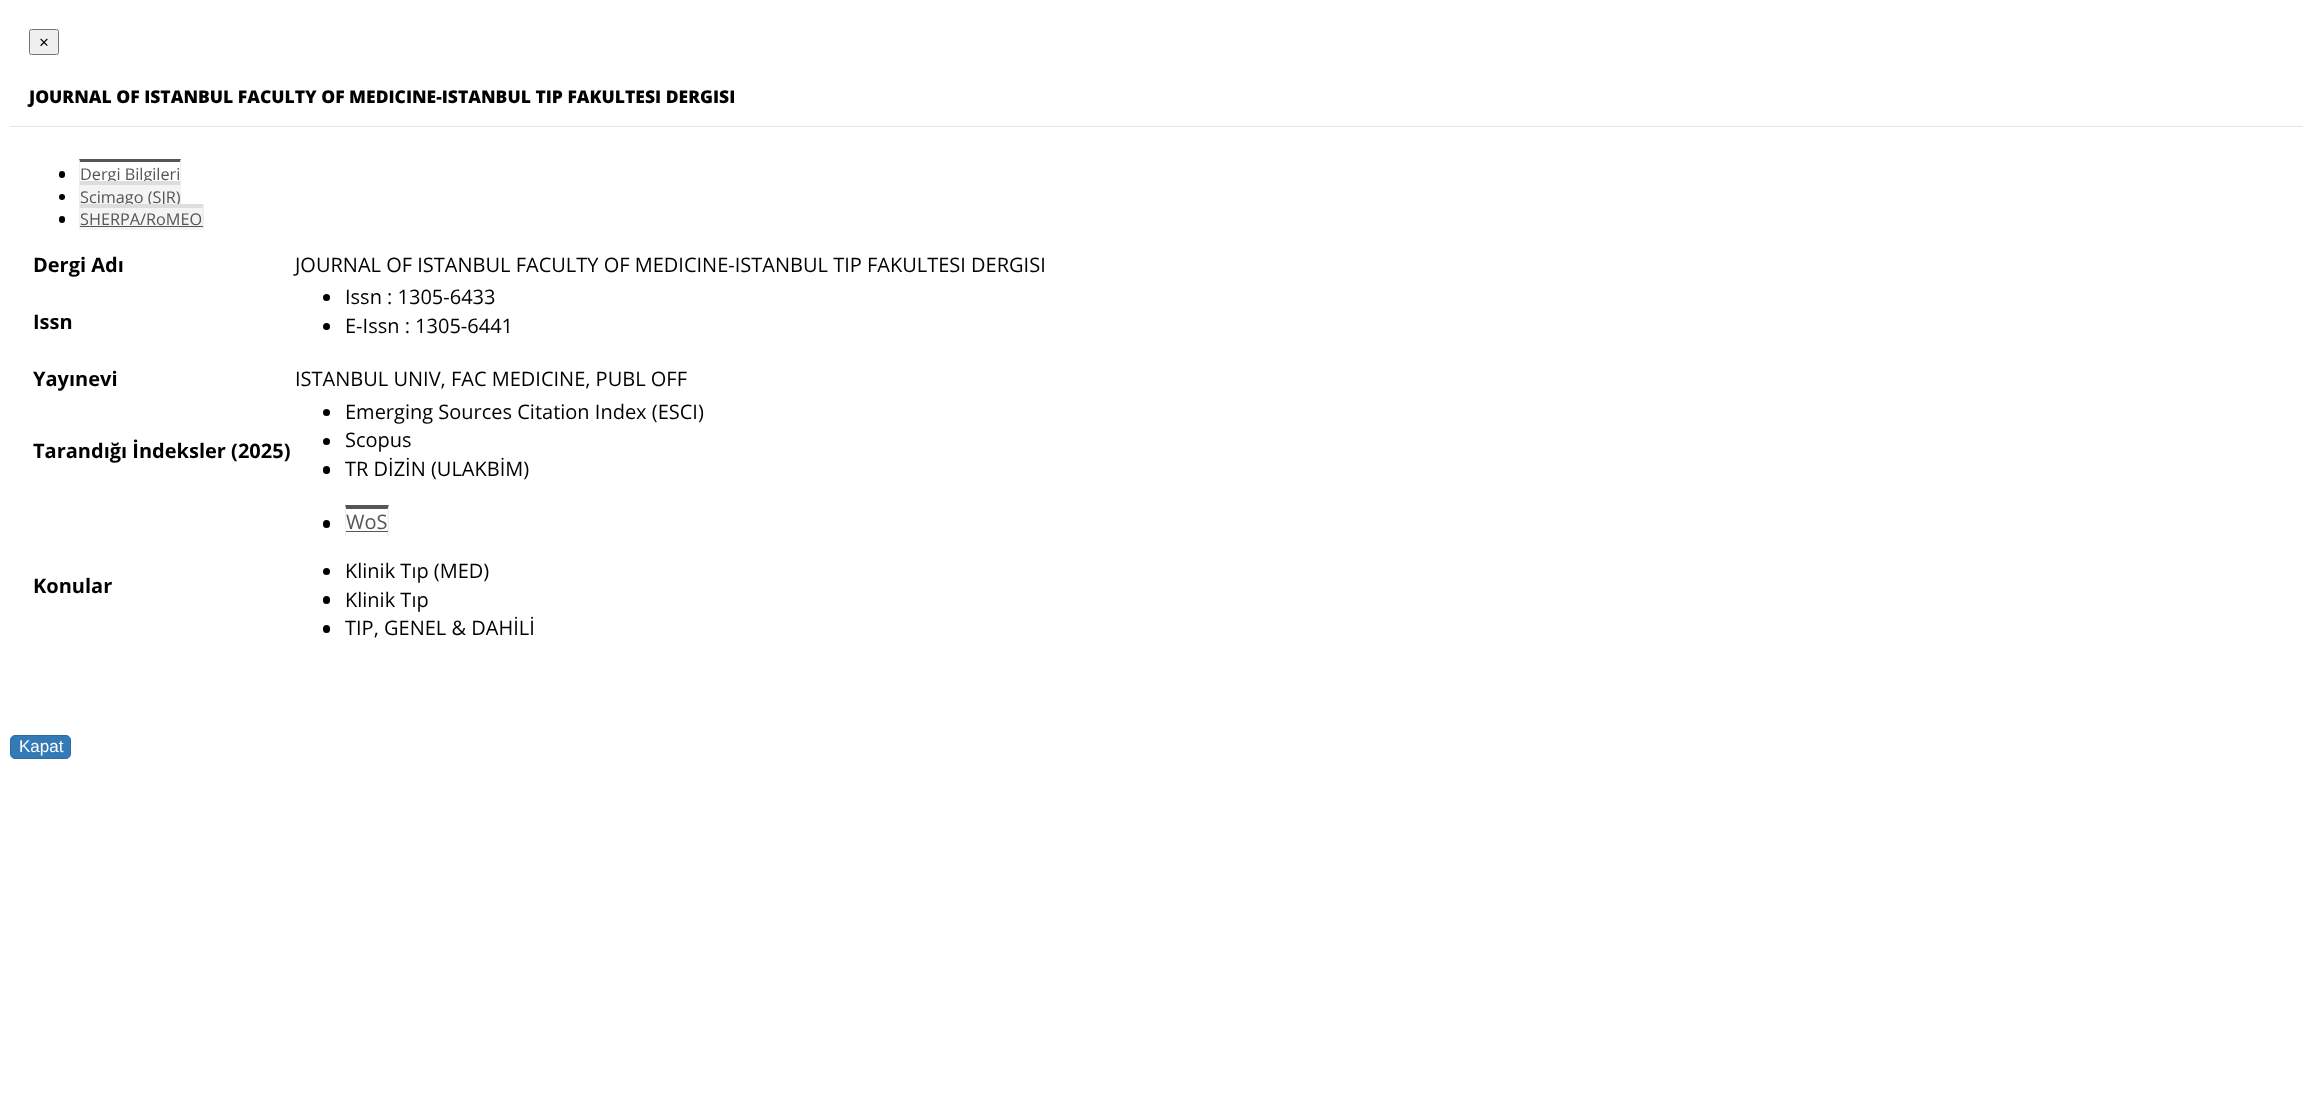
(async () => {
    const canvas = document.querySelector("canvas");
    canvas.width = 2312;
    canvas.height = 1100;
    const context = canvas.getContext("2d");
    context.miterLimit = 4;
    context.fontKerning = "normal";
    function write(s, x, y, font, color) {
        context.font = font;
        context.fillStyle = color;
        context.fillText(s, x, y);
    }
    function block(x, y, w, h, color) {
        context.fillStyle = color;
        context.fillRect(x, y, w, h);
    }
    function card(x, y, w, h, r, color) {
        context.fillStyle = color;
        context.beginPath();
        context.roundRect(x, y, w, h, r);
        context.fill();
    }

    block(0, 0, 2312, 1100, "rgb(255, 255, 255)");
    block(10, 126, 2293, 1, "rgb(229, 229, 229)");
    context.fillStyle = "rgb(239, 239, 239)";
    context.beginPath();
    context.roundRect(29.5, 29.5, 29, 25, 2);
    context.fill();
    context.strokeStyle = "rgb(118, 118, 118)";
    context.stroke();
    write("×", 39, 48, "17px Liberation Sans", "rgb(0, 0, 0)");
    write("JOURNAL OF ISTANBUL FACULTY OF MEDICINE-ISTANBUL TIP FAKULTESI DERGISI", 29, 103, "800 17.5px Open Sans", "rgb(0, 0, 0)");
    card(59, 171, 6, 7, 3, "rgb(0, 0, 0)");
    write("Dergi Bilgileri", 80, 180, "16.25px Open Sans", "rgb(85, 85, 85)");
    context.beginPath();
    context.moveTo(79, 159);
    context.lineTo(181, 159);
    context.lineTo(180, 162);
    context.lineTo(80, 162);
    context.closePath();
    context.fill();
    context.fillStyle = "rgb(238, 238, 238)";
    context.beginPath();
    context.moveTo(181, 159);
    context.lineTo(181, 185);
    context.lineTo(180, 185);
    context.lineTo(180, 162.5);
    context.closePath();
    context.fill();
    context.beginPath();
    context.moveTo(79, 185);
    context.lineTo(79, 159);
    context.lineTo(80, 162.5);
    context.lineTo(80, 185);
    context.closePath();
    context.fill();
    context.fillStyle = "rgb(0, 0, 0)";
    context.beginPath();
    context.arc(62, 197, 3, 0, Math.PI * 2);
    context.fill();
    block(79, 181, 102, 23, "rgb(244, 244, 244)");
    write("Scimago (SJR)", 80, 203, "16.25px Open Sans", "rgb(85, 85, 85)");
    context.fillStyle = "rgb(221, 221, 221)";
    context.beginPath();
    context.moveTo(79, 181);
    context.lineTo(181, 181);
    context.lineTo(180, 185);
    context.lineTo(80, 185);
    context.closePath();
    context.fill();
    context.fillStyle = "rgb(238, 238, 238)";
    context.beginPath();
    context.moveTo(181, 181);
    context.lineTo(181, 207.5);
    context.lineTo(180, 207.5);
    context.lineTo(180, 185);
    context.closePath();
    context.fill();
    context.beginPath();
    context.moveTo(79, 207.5);
    context.lineTo(79, 181);
    context.lineTo(80, 185);
    context.lineTo(80, 207.5);
    context.closePath();
    context.fill();
    card(59, 216, 6, 7, 3, "rgb(0, 0, 0)");
    block(79, 204, 125, 26, "rgb(244, 244, 244)");
    write("SHERPA/RoMEO", 80, 225, "16.25px Open Sans", "rgb(85, 85, 85)");
    context.fillStyle = "rgb(221, 221, 221)";
    context.beginPath();
    context.moveTo(79, 204);
    context.lineTo(204, 204);
    context.lineTo(202, 208);
    context.lineTo(80, 208);
    context.closePath();
    context.fill();
    context.fillStyle = "rgb(238, 238, 238)";
    context.beginPath();
    context.moveTo(204, 204);
    context.lineTo(204, 230);
    context.lineTo(202.5, 230);
    context.lineTo(202.5, 207.5);
    context.closePath();
    context.fill();
    context.beginPath();
    context.moveTo(79, 230);
    context.lineTo(79, 204);
    context.lineTo(80, 207.5);
    context.lineTo(80, 230);
    context.closePath();
    context.fill();
    block(80, 226, 123, 1, "rgb(85, 85, 85)");
    write("Dergi Adı", 33, 272, "bold 20px Open Sans", "rgb(0, 0, 0)");
    write("JOURNAL OF ISTANBUL FACULTY OF MEDICINE-ISTANBUL TIP FAKULTESI DERGISI", 295, 272, "20px Open Sans", "rgb(0, 0, 0)");
    write("Issn", 33, 329, "bold 20px Open Sans", "rgb(0, 0, 0)");
    context.beginPath();
    context.arc(326.5, 297.5, 3.5, 0, Math.PI * 2);
    context.fill();
    write("Issn : 1305-6433", 345, 304, "20px Open Sans", "rgb(0, 0, 0)");
    context.beginPath();
    context.arc(326.5, 326.5, 3.5, 0, Math.PI * 2);
    context.fill();
    write("E-Issn : 1305-6441", 345, 333, "20px Open Sans", "rgb(0, 0, 0)");
    write("Yayınevi", 33, 386, "bold 20px Open Sans", "rgb(0, 0, 0)");
    write("ISTANBUL UNIV, FAC MEDICINE, PUBL OFF", 295, 386, "20px Open Sans", "rgb(0, 0, 0)");
    write("Tarandığı İndeksler (2025)", 33, 458, "bold 20px Open Sans", "rgb(0, 0, 0)");
    context.beginPath();
    context.arc(326.5, 412.5, 3.5, 0, Math.PI * 2);
    context.fill();
    write("Emerging Sources Citation Index (ESCI)", 345, 419, "20px Open Sans", "rgb(0, 0, 0)");
    context.beginPath();
    context.arc(326.5, 441.5, 3.5, 0, Math.PI * 2);
    context.fill();
    write("Scopus", 345, 447, "20px Open Sans", "rgb(0, 0, 0)");
    card(323, 466, 7, 8, 3.5, "rgb(0, 0, 0)");
    write("TR DİZİN (ULAKBİM)", 345, 476, "20px Open Sans", "rgb(0, 0, 0)");
    write("Konular", 33, 593, "bold 20px Open Sans", "rgb(0, 0, 0)");
    card(323, 520, 7, 8, 3.5, "rgb(0, 0, 0)");
    context.fillStyle = "rgb(85, 85, 85)";
    context.beginPath();
    context.moveTo(345, 505);
    context.lineTo(389, 505);
    context.lineTo(388, 509);
    context.lineTo(346, 509);
    context.closePath();
    context.fill();
    context.fillStyle = "rgb(238, 238, 238)";
    context.beginPath();
    context.moveTo(389, 505);
    context.lineTo(389, 536);
    context.lineTo(387.5, 536);
    context.lineTo(387.5, 509);
    context.closePath();
    context.moveTo(345, 536);
    context.lineTo(345, 505);
    context.lineTo(346, 509);
    context.lineTo(346, 536);
    context.closePath();
    context.fill();
    write("WoS", 346, 529, "20px Open Sans", "rgb(85, 85, 85)");
    block(346, 531, 42, 1, "rgb(85, 85, 85)");
    context.fillStyle = "rgb(0, 0, 0)";
    context.beginPath();
    context.arc(326.5, 571.5, 3.5, 0, Math.PI * 2);
    context.fill();
    write("Klinik Tıp (MED)", 345, 578, "20px Open Sans", "rgb(0, 0, 0)");
    card(323, 596, 7, 8, 3.5, "rgb(0, 0, 0)");
    write("Klinik Tıp", 345, 607, "20px Open Sans", "rgb(0, 0, 0)");
    card(323, 625, 7, 8, 3.5, "rgb(0, 0, 0)");
    write("TIP, GENEL & DAHİLİ", 345, 635, "20px Open Sans", "rgb(0, 0, 0)");
    context.fillStyle = "rgb(51, 122, 183)";
    context.beginPath();
    context.roundRect(10.5, 735.5, 60, 23, 4.5);
    context.fill();
    context.strokeStyle = "rgb(46, 109, 164)";
    context.stroke();
    write("Kapat", 19, 752, "17px Liberation Sans", "rgb(255, 255, 255)");
})();
